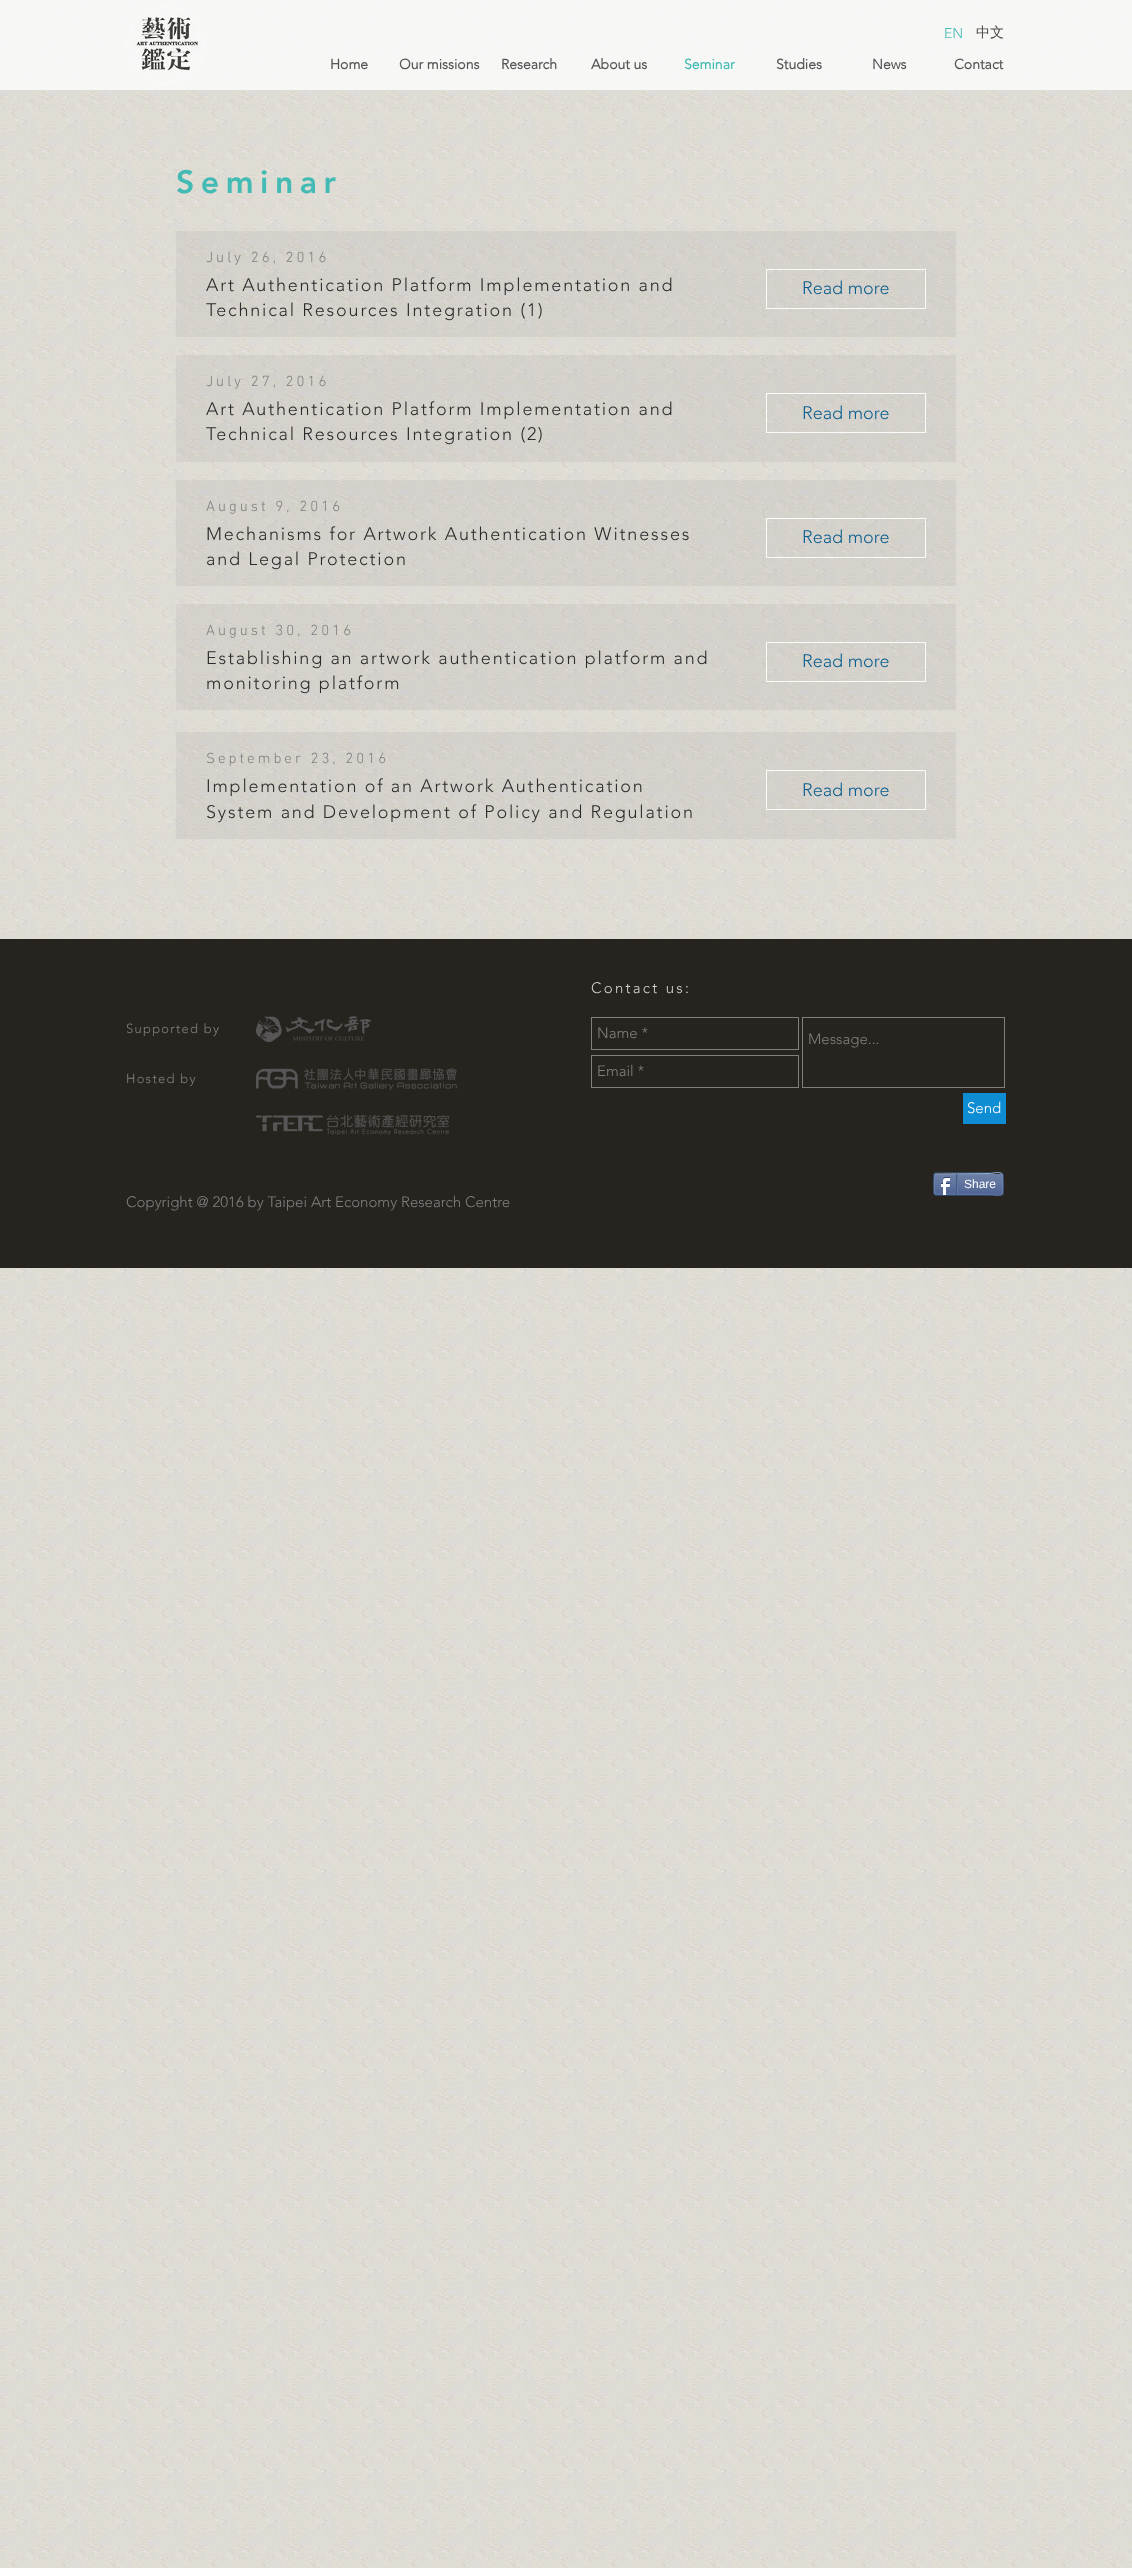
(async () => {
    const canvas = document.querySelector("canvas");
    canvas.width = 1132;
    canvas.height = 2568;
    const context = canvas.getContext("2d");
    context.miterLimit = 4;
    context.fontKerning = "normal";
    function write(s, x, y, font, color) {
        context.font = font;
        context.fillStyle = color;
        context.fillText(s, x, y);
    }
    function block(x, y, w, h, color) {
        context.fillStyle = color;
        context.fillRect(x, y, w, h);
    }
    async function photo(src, x, y, w, h) {
        const img = new Image();
        img.src = src;
        await img.decode();
        context.drawImage(img, x, y, w, h);
    }

    block(0, 0, 1132, 2568, "rgb(255, 255, 255)");
    await photo("media/1.png", 0, 0, 1132, 2568);
    block(0, 0, 1132, 90, "rgba(250, 250, 250, 0.9)");
    await photo("media/2.png", 126, 5, 80, 80);
    write("EN", 944, 38, "300 14px 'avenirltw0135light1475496'", "rgb(65, 187, 179)");
    write("中文", 976, 37, "500 14px WenQuanYi Zen Hei", "rgb(78, 72, 65)");
    write("Home", 330, 69, "bold 14px 'avenirltw0135light1475496'", "rgb(85, 85, 85)");
    write("Our missions", 399, 69, "bold 14px 'avenirltw0135light1475496'", "rgb(85, 85, 85)");
    write("Research", 501, 69, "bold 14px 'avenirltw0135light1475496'", "rgb(85, 85, 85)");
    write("About us", 591, 69, "bold 14px 'avenirltw0135light1475496'", "rgb(85, 85, 85)");
    write("Seminar", 684, 69, "bold 14px 'avenirltw0135light1475496'", "rgb(65, 187, 179)");
    write("Studies", 776, 69, "bold 14px 'avenirltw0135light1475496'", "rgb(85, 85, 85)");
    write("News", 872, 69, "bold 14px 'avenirltw0135light1475496'", "rgb(85, 85, 85)");
    write("Contact", 954, 69, "bold 14px 'avenirltw0135light1475496'", "rgb(85, 85, 85)");
    context.letterSpacing = "6.5px";
    write("Seminar", 176, 193, "900 32px 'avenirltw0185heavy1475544'", "rgb(65, 187, 179)");
    block(176, 231, 780, 106, "rgba(43, 43, 43, 0.05)");
    context.letterSpacing = "3px";
    write("July 26, 2016", 206, 262, "300 15px 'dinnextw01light'", "rgb(128, 128, 128)");
    context.letterSpacing = "1.8px";
    write("Art Authentication Platform Implementation and", 206, 291, "300 18px 'avenirltw0135light1475496'", "rgb(43, 43, 43)");
    write("Technical Resources Integration (1)", 206, 316, "300 18px 'avenirltw0135light1475496'", "rgb(43, 43, 43)");
    context.strokeStyle = "rgb(250, 250, 250)";
    context.strokeRect(766.5, 269.5, 159, 39);
    context.letterSpacing = "0px";
    write("Read more", 802, 294, "300 18px 'avenirltw0135light1475496'", "rgb(10, 94, 141)");
    block(176, 355, 780, 107, "rgba(43, 43, 43, 0.05)");
    context.letterSpacing = "3px";
    write("July 27, 2016", 206, 386, "300 15px 'dinnextw01light'", "rgb(128, 128, 128)");
    context.letterSpacing = "1.8px";
    write("Art Authentication Platform Implementation and", 206, 415, "300 18px 'avenirltw0135light1475496'", "rgb(43, 43, 43)");
    write("Technical Resources Integration (2)", 206, 440, "300 18px 'avenirltw0135light1475496'", "rgb(43, 43, 43)");
    context.strokeRect(766.5, 393.5, 159, 39);
    context.letterSpacing = "0px";
    write("Read more", 802, 419, "300 18px 'avenirltw0135light1475496'", "rgb(10, 94, 141)");
    block(176, 480, 780, 106, "rgba(43, 43, 43, 0.05)");
    context.letterSpacing = "3px";
    write("August 9, 2016", 206, 511, "300 15px 'dinnextw01light'", "rgb(128, 128, 128)");
    context.letterSpacing = "1.8px";
    write("Mechanisms for Artwork Authentication Witnesses", 206, 540, "300 18px 'avenirltw0135light1475496'", "rgb(43, 43, 43)");
    write("and Legal Protection", 206, 565, "300 18px 'avenirltw0135light1475496'", "rgb(43, 43, 43)");
    context.strokeRect(766.5, 518.5, 159, 39);
    context.letterSpacing = "0px";
    write("Read more", 802, 543, "300 18px 'avenirltw0135light1475496'", "rgb(10, 94, 141)");
    block(176, 604, 780, 106, "rgba(43, 43, 43, 0.05)");
    context.letterSpacing = "3px";
    write("August 30, 2016", 206, 635, "300 15px 'dinnextw01light'", "rgb(128, 128, 128)");
    context.letterSpacing = "1.8px";
    write("Establishing an artwork authentication platform and", 206, 664, "300 18px 'avenirltw0135light1475496'", "rgb(43, 43, 43)");
    write("monitoring platform", 206, 689, "300 18px 'avenirltw0135light1475496'", "rgb(43, 43, 43)");
    context.strokeRect(766.5, 642.5, 159, 39);
    context.letterSpacing = "0px";
    write("Read more", 802, 667, "300 18px 'avenirltw0135light1475496'", "rgb(10, 94, 141)");
    block(176, 732, 780, 107, "rgba(43, 43, 43, 0.05)");
    context.letterSpacing = "3px";
    write("September 23, 2016", 206, 763, "300 15px 'dinnextw01light'", "rgb(128, 128, 128)");
    context.letterSpacing = "1.8px";
    write("Implementation of an Artwork Authentication", 206, 792, "300 18px 'avenirltw0135light1475496'", "rgb(43, 43, 43)");
    write("System and Development of Policy and Regulation", 206, 818, "300 18px 'avenirltw0135light1475496'", "rgb(43, 43, 43)");
    context.strokeRect(766.5, 770.5, 159, 39);
    context.letterSpacing = "0px";
    write("Read more", 802, 796, "300 18px 'avenirltw0135light1475496'", "rgb(10, 94, 141)");
    block(0, 939, 1132, 329, "rgb(39, 36, 32)");
    context.letterSpacing = "2.25px";
    write("Contact us:", 591, 993, "300 15px 'avenirltw0135light1475496'", "rgb(213, 213, 213)");
    context.letterSpacing = "1.25px";
    write("Supported by", 126, 1033, "300 13px 'avenirltw0135light1475496'", "rgb(128, 128, 128)");
    await photo("media/3.png", 256, 1016, 115, 26);
    write("Hosted by", 126, 1083, "300 13px 'avenirltw0135light1475496'", "rgb(128, 128, 128)");
    await photo("media/4.png", 256, 1068, 201, 22);
    await photo("media/5.png", 256, 1115, 193, 20);
    context.strokeStyle = "rgb(128, 128, 128)";
    context.strokeRect(591.5, 1017.5, 207, 32);
    context.letterSpacing = "0px";
    write("Name *", 597, 1038, "300 15px 'avenirltw0135light1475496'", "rgb(128, 128, 128)");
    context.strokeRect(802.5, 1017.5, 202, 70);
    write("Message...", 808, 1044, "300 15px 'avenirltw0135light1475496'", "rgb(128, 128, 128)");
    context.strokeRect(591.5, 1055.5, 207, 32);
    write("Email *", 597, 1076, "300 15px 'avenirltw0135light1475496'", "rgb(128, 128, 128)");
    block(963, 1093, 43, 31, "rgb(15, 141, 212)");
    write("Send", 967, 1113, "300 15px 'avenirltw0135light1475496'", "rgb(255, 255, 255)");
    context.beginPath();
    context.roundRect(933.5, 1172.5, 70, 23, 2.5);
    context.strokeStyle = "rgb(45, 69, 101)";
    context.stroke();
    await photo("media/6.png", 934, 1174, 69, 21);
    context.beginPath();
    context.moveTo(935, 1174);
    context.lineTo(990, 1173.5);
    context.bezierCurveTo(994, 1173.5, 999, 1171, 1002, 1174);
    context.strokeStyle = "rgb(154, 171, 198)";
    context.stroke();
    context.beginPath();
    context.moveTo(1002, 1174);
    context.bezierCurveTo(1003, 1174.5, 1003, 1193.5, 1002, 1194);
    context.strokeStyle = "rgb(111, 131, 173)";
    context.stroke();
    context.beginPath();
    context.moveTo(1002, 1194);
    context.bezierCurveTo(999, 1197, 994, 1194.5, 990, 1194.5);
    context.lineTo(935, 1194);
    context.strokeStyle = "rgb(97, 118, 163)";
    context.stroke();
    context.beginPath();
    context.moveTo(935, 1194);
    context.bezierCurveTo(934, 1193.5, 934, 1174.5, 935, 1174);
    context.strokeStyle = "rgb(111, 131, 173)";
    context.stroke();
    await photo("media/7.png", 940, 1177, 10, 18);
    block(956, 1174, 1, 21, "rgb(66, 94, 133)");
    write("Share", 964, 1188, "12px Liberation Sans", "rgb(255, 255, 255)");
    block(957, 1174, 1, 20, "rgb(97, 118, 163)");
    write("Copyright @ 2016 by Taipei Art Economy Research Centre", 126, 1207, "300 15px 'avenirltw0135light1475496'", "rgb(128, 128, 128)");
})();
